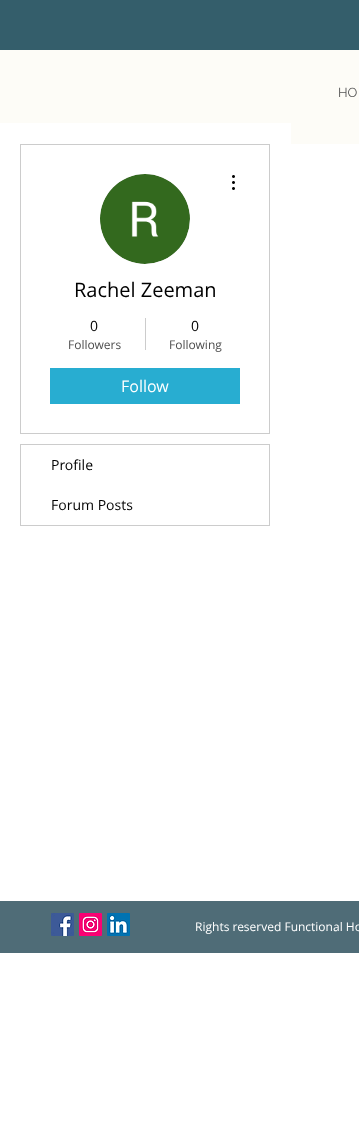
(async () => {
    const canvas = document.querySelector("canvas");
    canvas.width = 359;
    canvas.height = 1140;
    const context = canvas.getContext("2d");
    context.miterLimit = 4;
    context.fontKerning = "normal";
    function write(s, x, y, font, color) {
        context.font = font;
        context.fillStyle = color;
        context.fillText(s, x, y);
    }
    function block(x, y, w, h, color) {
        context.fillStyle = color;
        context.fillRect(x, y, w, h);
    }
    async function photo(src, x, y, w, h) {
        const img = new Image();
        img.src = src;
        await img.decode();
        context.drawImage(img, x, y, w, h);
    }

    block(0, 0, 359, 1140, "rgb(255, 255, 255)");
    block(0, 50, 359, 94, "rgb(253, 252, 247)");
    block(0, 0, 359, 50, "rgb(52, 94, 107)");
    write("HO", 338, 97, "13px Raleway", "rgb(85, 85, 85)");
    block(0, 123, 291, 21, "rgb(255, 255, 255)");
    context.strokeStyle = "rgb(204, 204, 204)";
    context.strokeRect(20.5, 144.5, 249, 289);
    context.fillStyle = "rgb(216, 216, 216)";
    context.beginPath();
    context.arc(145, 219, 45, 0, Math.PI * 2);
    context.fill();
    await photo("media/1.png", 100, 174, 90, 90);
    await photo("media/2.png", 232, 175, 3, 15);
    write("Rachel Zeeman", 74, 297, "20px Open Sans", "rgb(0, 0, 0)");
    write("0", 90, 331, "14px Open Sans", "rgb(0, 0, 0)");
    write("Followers", 68, 349, "12px Open Sans", "rgb(77, 77, 77)");
    block(145, 318, 1, 32, "rgb(204, 204, 204)");
    write("0", 191, 331, "14px Open Sans", "rgb(0, 0, 0)");
    write("Following", 169, 349, "12px Open Sans", "rgb(77, 77, 77)");
    block(50, 368, 190, 36, "rgb(40, 173, 209)");
    write("Follow", 121, 392, "16px Open Sans", "rgb(255, 255, 255)");
    context.strokeRect(20.5, 444.5, 249, 81);
    write("Profile", 51, 470, "14px Open Sans", "rgb(0, 0, 0)");
    write("Forum Posts", 51, 510, "14px Open Sans", "rgb(0, 0, 0)");
    block(0, 901, 359, 52, "rgb(79, 108, 119)");
    await photo("media/3.png", 51, 913, 23, 23);
    await photo("media/4.png", 79, 913, 23, 23);
    await photo("media/5.png", 107, 913, 23, 23);
    write("Rights reserved Functional Ho", 195, 931, "12px Open Sans", "rgb(255, 255, 255)");
})();
